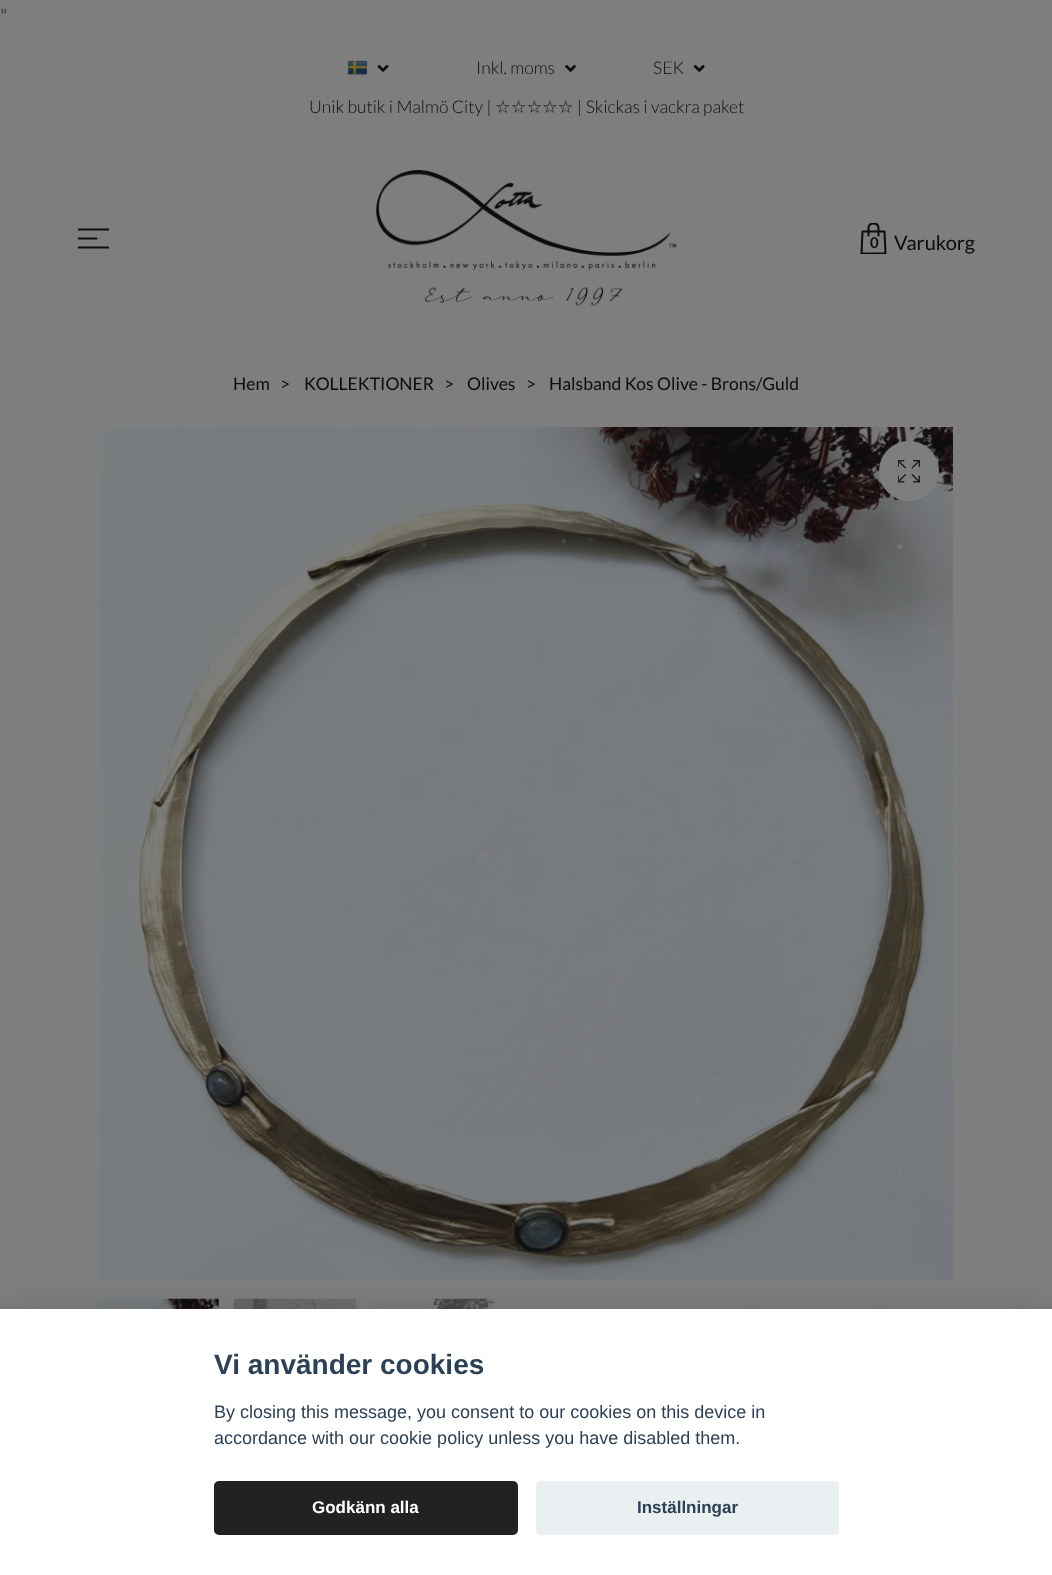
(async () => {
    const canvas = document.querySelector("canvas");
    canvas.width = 1052;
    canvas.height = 1575;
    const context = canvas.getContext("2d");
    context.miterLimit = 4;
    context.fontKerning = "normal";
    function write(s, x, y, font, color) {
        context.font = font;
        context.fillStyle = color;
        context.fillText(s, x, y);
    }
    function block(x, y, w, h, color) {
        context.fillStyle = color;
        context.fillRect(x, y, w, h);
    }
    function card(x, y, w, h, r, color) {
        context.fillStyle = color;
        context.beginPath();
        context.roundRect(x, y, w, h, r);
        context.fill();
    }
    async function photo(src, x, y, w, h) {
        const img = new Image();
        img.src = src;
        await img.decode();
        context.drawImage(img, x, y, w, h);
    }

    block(0, 0, 1052, 1575, "rgb(126, 126, 127)");
    write("\"", 0, 23, "300 20px Lato", "rgb(11, 12, 12)");
    await photo("media/2.png", 347, 60, 21, 16);
    await photo("media/3.png", 377, 65, 12, 7);
    write("Inkl. moms", 476, 74, "300 17.5px Lato", "rgb(11, 12, 12)");
    await photo("media/4.png", 565, 65, 11, 7);
    write("SEK", 653, 74, "300 17.5px Lato", "rgb(11, 12, 12)");
    await photo("media/5.png", 693, 65, 12, 7);
    write("Unik butik i Malmö City |", 309, 113, "300 17.5px Lato", "rgb(11, 12, 12)");
    write("☆☆☆☆☆", 495, 113, "17.5px DejaVu Sans", "rgb(11, 12, 12)");
    write("| Skickas i vackra paket", 577, 113, "300 17.5px Lato", "rgb(11, 12, 12)");
    context.save();
    context.beginPath();
    context.rect(78, 223, 31, 31);
    context.clip();
    context.beginPath();
    context.moveTo(78.5, 229.5);
    context.lineTo(108.5, 229.5);
    context.moveTo(78.5, 238.5);
    context.lineTo(96.5, 238.5);
    context.moveTo(78.5, 247.5);
    context.lineTo(108.5, 247.5);
    context.strokeStyle = "rgb(11, 12, 12)";
    context.lineWidth = 2;
    context.lineCap = "round";
    context.lineJoin = "round";
    context.stroke();
    context.restore();
    await photo("media/6.png", 376, 170, 301, 136);
    context.save();
    context.beginPath();
    context.rect(858, 223, 31, 31);
    context.clip();
    context.beginPath();
    context.moveTo(885.5, 253.5);
    context.lineTo(861.5, 253.5);
    context.lineTo(862.5, 231.5);
    context.lineTo(884.5, 231.5);
    context.closePath();
    context.moveTo(868.5, 235.5);
    context.lineTo(868.5, 228.5);
    context.bezierCurveTo(868.5, 225.5, 870.5, 223.5, 873.5, 223.5);
    context.bezierCurveTo(876.5, 223.5, 878.5, 225.5, 878.5, 228.5);
    context.lineTo(878.5, 235.5);
    context.strokeStyle = "rgb(11, 12, 12)";
    context.lineWidth = 2;
    context.lineCap = "round";
    context.lineJoin = "round";
    context.stroke();
    context.restore();
    write("Varukorg", 894, 250, "20px Lato", "rgb(11, 12, 12)");
    write("0", 870, 248, "bold 15px Lato", "rgb(11, 12, 12)");
    write("Hem", 233, 390, "17.5px Lato", "rgb(11, 12, 12)");
    write(">", 280, 390, "17.5px Lato", "rgb(11, 12, 12)");
    write("KOLLEKTIONER", 304, 390, "17.5px Lato", "rgb(11, 12, 12)");
    write(">", 444, 390, "17.5px Lato", "rgb(11, 12, 12)");
    write("Olives", 467, 390, "17.5px Lato", "rgb(11, 12, 12)");
    write(">", 526, 390, "17.5px Lato", "rgb(11, 12, 12)");
    write("Halsband Kos Olive - Brons/Guld", 549, 390, "17.5px Lato", "rgb(11, 12, 12)");
    await photo("media/7.png", 99, 427, 854, 854);
    context.fillStyle = "rgb(126, 126, 127)";
    context.beginPath();
    context.arc(909, 471, 30, 0, Math.PI * 2);
    context.fill();
    await photo("media/8.png", 898, 460, 22, 23);
    await photo("media/9.png", 96, 1298, 123, 11);
    await photo("media/10.png", 233, 1298, 124, 11);
    await photo("media/11.png", 371, 1298, 123, 11);
    await photo("media/1.png", 5, 9, 931, 1300);
    context.fillStyle = "rgba(2, 2, 3, 0.28)";
    context.filter = "blur(19px)";
    context.beginPath();
    context.rect(0, 1321, 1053, 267);
    context.fill();
    context.filter = "none";
    block(0, 1309, 1052, 266, "rgb(255, 255, 255)");
    write("Vi använder cookies", 214, 1374, "bold 28px Liberation Sans", "rgb(45, 65, 86)");
    write("By closing this message, you consent to our cookies on this device in", 214, 1418, "18px Liberation Sans", "rgb(45, 65, 86)");
    write("accordance with our cookie policy unless you have disabled them.", 214, 1444, "18px Liberation Sans", "rgb(45, 65, 86)");
    card(214, 1481, 304, 54, 5, "rgb(34, 34, 34)");
    write("Godkänn alla", 312, 1513, "bold 17px Liberation Sans", "rgb(255, 255, 255)");
    card(536, 1481, 303, 54, 5, "rgb(234, 239, 242)");
    write("Inställningar", 637, 1513, "bold 17px Liberation Sans", "rgb(45, 65, 86)");
})();
